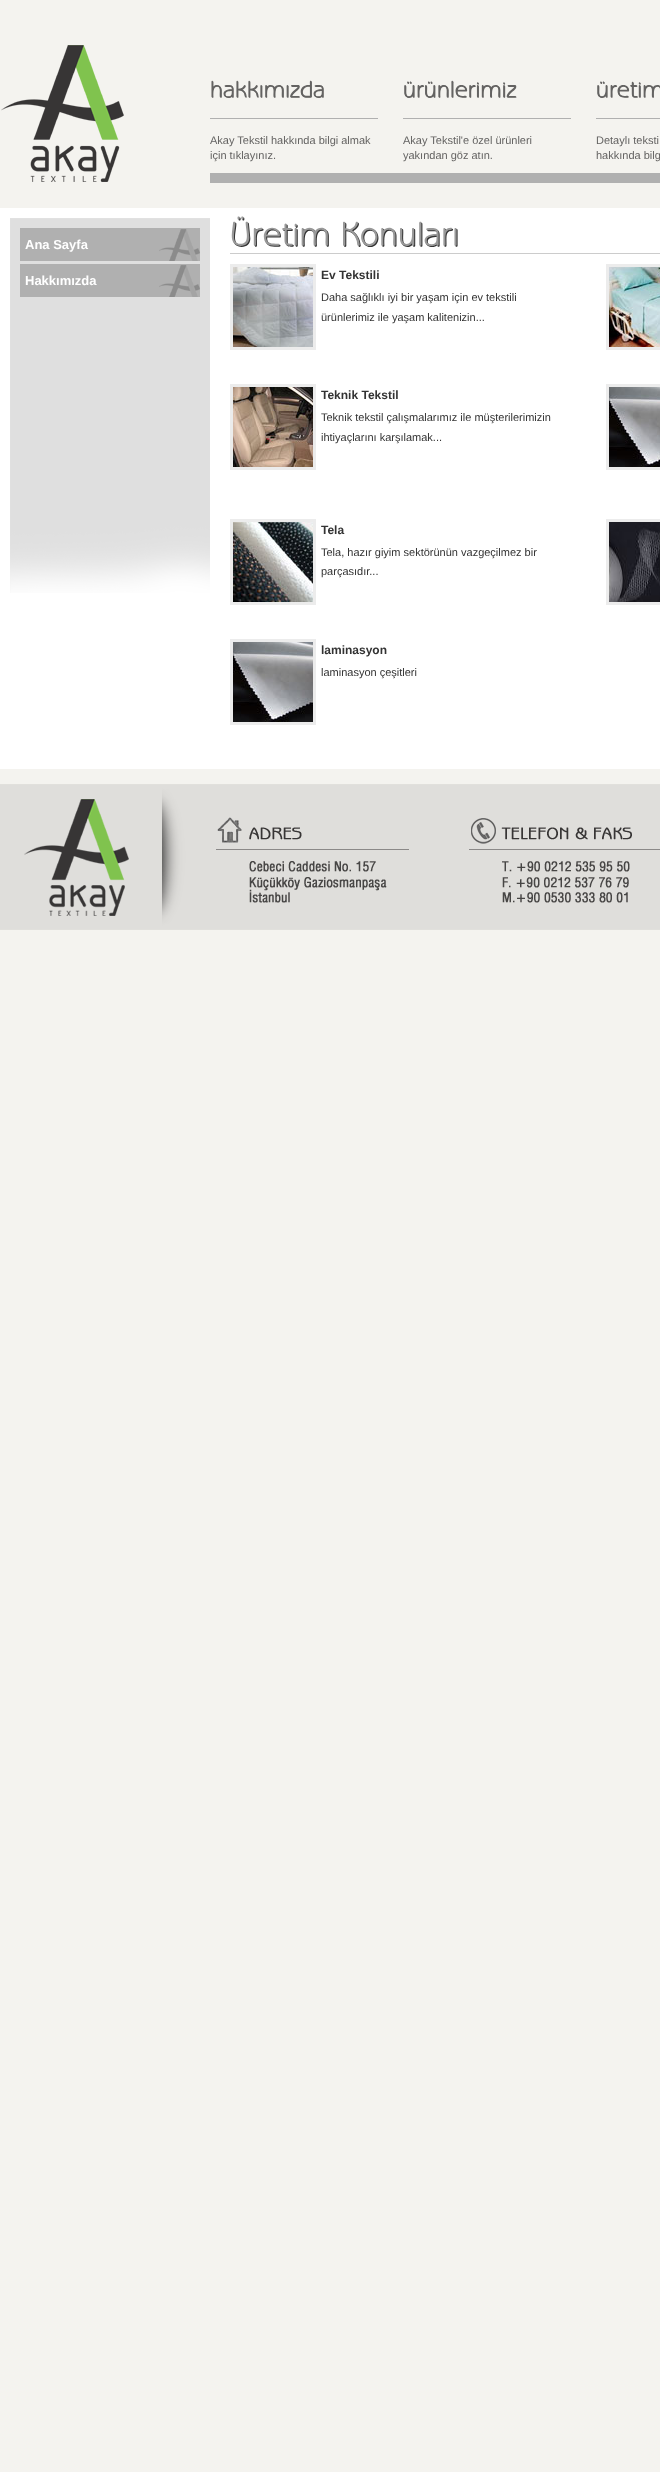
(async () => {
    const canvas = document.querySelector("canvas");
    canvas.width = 660;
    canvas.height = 2472;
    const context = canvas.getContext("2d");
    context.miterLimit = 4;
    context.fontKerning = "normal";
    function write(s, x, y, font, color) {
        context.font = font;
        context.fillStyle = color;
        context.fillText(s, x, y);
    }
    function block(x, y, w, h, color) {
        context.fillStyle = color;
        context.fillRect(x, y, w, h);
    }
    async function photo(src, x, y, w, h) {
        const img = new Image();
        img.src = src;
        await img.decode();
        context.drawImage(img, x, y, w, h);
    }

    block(0, 0, 660, 2472, "rgb(244, 243, 239)");
    await photo("media/1.png", 1, 45, 123, 137);
    block(210, 173, 450, 10, "rgb(176, 176, 176)");
    block(210, 118, 168, 1, "rgb(176, 176, 176)");
    await photo("media/2.png", 211, 80, 113, 18);
    write("Akay Tekstil hakkında bilgi almak", 210, 144, "11px Liberation Sans", "rgb(100, 99, 98)");
    write("için tıklayınız.", 210, 159, "11px Liberation Sans", "rgb(100, 99, 98)");
    block(403, 118, 168, 1, "rgb(176, 176, 176)");
    await photo("media/3.png", 404, 80, 113, 18);
    write("Akay Tekstil'e özel ürünleri", 403, 144, "11px Liberation Sans", "rgb(100, 99, 98)");
    write("yakından göz atın.", 403, 159, "11px Liberation Sans", "rgb(100, 99, 98)");
    block(596, 118, 64, 1, "rgb(176, 176, 176)");
    await photo("media/4.png", 597, 81, 63, 17);
    write("Detaylı teksti", 596, 144, "11px Liberation Sans", "rgb(100, 99, 98)");
    write("hakkında bilg", 596, 159, "11px Liberation Sans", "rgb(100, 99, 98)");
    block(0, 208, 660, 561, "rgb(255, 255, 255)");
    await photo("media/5.png", 10, 218, 200, 375);
    block(20, 228, 180, 33, "rgb(176, 176, 176)");
    await photo("media/6.png", 159, 229, 41, 32);
    write("Ana Sayfa", 25, 249, "bold 13px Liberation Sans", "rgb(255, 255, 255)");
    block(20, 264, 180, 33, "rgb(176, 176, 176)");
    await photo("media/6.png", 159, 265, 41, 32);
    write("Hakkımızda", 25, 285, "bold 13px Liberation Sans", "rgb(255, 255, 255)");
    block(230, 253, 430, 1, "rgb(204, 204, 204)");
    await photo("media/7.png", 231, 216, 98, 31);
    await photo("media/8.png", 343, 221, 115, 26);
    await photo("media/9.png", 233, 267, 80, 80);
    context.strokeStyle = "rgb(236, 236, 236)";
    context.lineWidth = 3;
    context.strokeRect(231.5, 265.5, 83, 83);
    write("Ev Tekstili", 321, 279, "bold 12px Liberation Sans", "rgb(51, 51, 51)");
    write("Daha sağlıklı iyi bir yaşam için ev tekstili", 321, 301, "11px Liberation Sans", "rgb(51, 51, 51)");
    write("ürünlerimiz ile yaşam kalitenizin...", 321, 321, "11px Liberation Sans", "rgb(51, 51, 51)");
    await photo("media/10.png", 609, 267, 51, 80);
    context.strokeRect(607.5, 265.5, 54, 83);
    await photo("media/11.png", 233, 387, 80, 80);
    context.strokeRect(231.5, 385.5, 83, 83);
    write("Teknik Tekstil", 321, 399, "bold 12px Liberation Sans", "rgb(51, 51, 51)");
    write("Teknik tekstil çalışmalarımız ile müşterilerimizin", 321, 421, "11px Liberation Sans", "rgb(51, 51, 51)");
    write("ihtiyaçlarını karşılamak...", 321, 441, "11px Liberation Sans", "rgb(51, 51, 51)");
    await photo("media/12.png", 609, 387, 51, 80);
    context.strokeRect(607.5, 385.5, 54, 83);
    await photo("media/13.png", 233, 522, 80, 80);
    context.strokeRect(231.5, 520.5, 83, 83);
    write("Tela", 321, 534, "bold 12px Liberation Sans", "rgb(51, 51, 51)");
    write("Tela, hazır giyim sektörünün vazgeçilmez bir", 321, 556, "11px Liberation Sans", "rgb(51, 51, 51)");
    write("parçasıdır...", 321, 575, "11px Liberation Sans", "rgb(51, 51, 51)");
    await photo("media/14.png", 609, 522, 51, 80);
    context.strokeRect(607.5, 520.5, 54, 83);
    await photo("media/15.png", 233, 642, 80, 80);
    context.strokeRect(231.5, 640.5, 83, 83);
    write("laminasyon", 321, 654, "bold 12px Liberation Sans", "rgb(51, 51, 51)");
    write("laminasyon çeşitleri", 321, 676, "11px Liberation Sans", "rgb(51, 51, 51)");
    await photo("media/16.png", 0, 784, 660, 146);
})();
